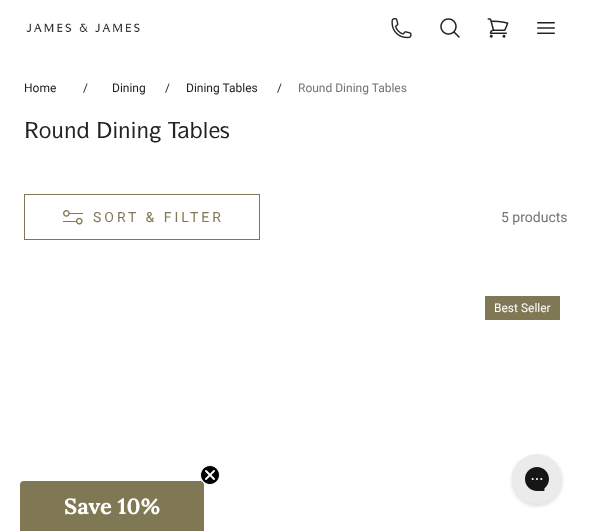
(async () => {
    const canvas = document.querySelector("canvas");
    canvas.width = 592;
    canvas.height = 531;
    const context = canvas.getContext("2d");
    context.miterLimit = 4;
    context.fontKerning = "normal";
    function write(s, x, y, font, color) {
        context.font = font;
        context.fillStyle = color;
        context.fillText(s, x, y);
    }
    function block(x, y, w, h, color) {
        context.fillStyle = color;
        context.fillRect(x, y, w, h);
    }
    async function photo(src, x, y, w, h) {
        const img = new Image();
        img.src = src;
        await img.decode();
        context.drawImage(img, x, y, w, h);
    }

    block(0, 0, 592, 531, "rgb(255, 255, 255)");
    await photo("media/1.png", 26, 23, 114, 10);
    await photo("media/2.png", 391, 18, 21, 21);
    await photo("media/3.png", 440, 18, 20, 20);
    await photo("media/4.png", 487, 18, 22, 20);
    await photo("media/5.png", 537, 22, 18, 12);
    write("Home", 24, 92, "12px Roboto", "rgb(33, 35, 34)");
    write("/", 83, 92, "12px Roboto", "rgb(33, 35, 34)");
    write("Dining", 112, 92, "12px Roboto", "rgb(33, 35, 34)");
    write("/", 165, 92, "12px Roboto", "rgb(33, 35, 34)");
    write("Dining Tables", 186, 92, "12px Roboto", "rgb(33, 35, 34)");
    write("/", 277, 92, "12px Roboto", "rgb(33, 35, 34)");
    write("Round Dining Tables", 298, 92, "12px Roboto", "rgb(115, 115, 115)");
    write("Round Dining Tables", 24, 138, "500 22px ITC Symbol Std", "rgb(33, 35, 34)");
    context.strokeStyle = "rgb(128, 120, 84)";
    context.strokeRect(24.5, 194.5, 235, 45);
    await photo("media/6.png", 63, 210, 20, 15);
    context.letterSpacing = "3px";
    write("SORT & FILTER", 93, 222, "14px Roboto", "rgb(128, 120, 84)");
    context.letterSpacing = "0px";
    write("5 products", 501, 222, "14px Roboto", "rgb(115, 115, 115)");
    block(485, 296, 75, 24, "rgb(128, 120, 84)");
    write("Best Seller", 494, 312, "12px Roboto", "rgb(255, 255, 255)");
    context.fillStyle = "rgb(128, 120, 84)";
    context.beginPath();
    context.roundRect(20, 481, 184, 50, [4, 4, 0, 0]);
    context.fill();
    await photo("media/7.png", 200, 465, 20, 20);
    write("Save 10%", 64, 514, "bold 22px Lora", "rgb(255, 255, 255)");
    await photo("media/8.png", 510, 454, 54, 54);
})();
